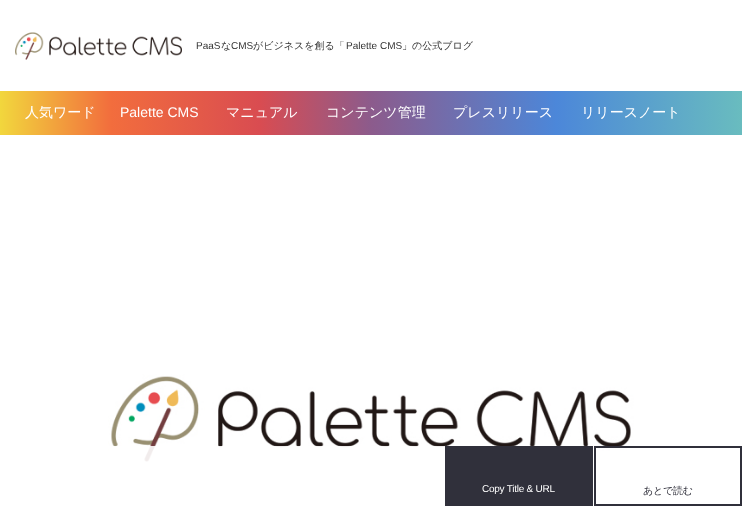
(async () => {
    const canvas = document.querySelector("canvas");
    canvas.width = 742;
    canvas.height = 506;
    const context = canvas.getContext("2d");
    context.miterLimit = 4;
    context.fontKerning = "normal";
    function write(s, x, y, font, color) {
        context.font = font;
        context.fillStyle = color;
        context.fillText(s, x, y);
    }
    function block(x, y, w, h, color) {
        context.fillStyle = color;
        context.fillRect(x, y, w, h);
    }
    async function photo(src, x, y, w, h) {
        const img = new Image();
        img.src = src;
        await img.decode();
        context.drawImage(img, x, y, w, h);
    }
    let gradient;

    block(0, 0, 742, 506, "rgb(255, 255, 255)");
    await photo("media/1.png", 15, 32, 167, 28);
    write("PaaS", 196, 49, "10px Liberation Sans", "rgb(51, 51, 51)");
    write("な", 221, 49, "500 10px WenQuanYi Zen Hei", "rgb(51, 51, 51)");
    write("CMS", 231, 49, "10px Liberation Sans", "rgb(51, 51, 51)");
    write("がビジネスを創る「", 253, 49, "500 10px WenQuanYi Zen Hei", "rgb(51, 51, 51)");
    write("Palette CMS", 346, 49, "10px Liberation Sans", "rgb(51, 51, 51)");
    write("」の公式ブログ", 402, 49, "500 10px WenQuanYi Zen Hei", "rgb(51, 51, 51)");
    gradient = context.createLinearGradient(0, 113, 742, 113);
    gradient.addColorStop(0, "rgb(242, 215, 61)");
    gradient.addColorStop(0.15, "rgb(242, 109, 61)");
    gradient.addColorStop(0.35, "rgb(217, 76, 81)");
    gradient.addColorStop(0.5, "rgb(140, 91, 140)");
    gradient.addColorStop(0.75, "rgb(76, 135, 217)");
    gradient.addColorStop(1, "rgb(105, 188, 191)");
    context.fillStyle = gradient;
    context.fillRect(0, 91, 742, 44);
    write("人気ワード", 25, 117, "500 14px WenQuanYi Zen Hei", "rgb(255, 255, 255)");
    write("Palette CMS", 120, 117, "14px Liberation Sans", "rgb(255, 255, 255)");
    write("マニュアル", 226, 117, "500 14px WenQuanYi Zen Hei", "rgb(255, 255, 255)");
    write("コンテンツ管理", 326, 117, "500 14px WenQuanYi Zen Hei", "rgb(255, 255, 255)");
    write("プレスリリース", 453, 117, "500 14px WenQuanYi Zen Hei", "rgb(255, 255, 255)");
    write("リリースノート", 581, 117, "500 14px WenQuanYi Zen Hei", "rgb(255, 255, 255)");
    await photo("media/2.png", 25, 160, 692, 346);
    block(109, 446, 479, 18, "rgba(255, 255, 255, 0.9)");
    block(445, 446, 148, 60, "rgb(48, 48, 59)");
    context.letterSpacing = "-0.25px";
    write("Copy Title & URL", 482, 492, "10px Liberation Sans", "rgb(255, 255, 255)");
    context.strokeStyle = "rgb(48, 48, 59)";
    context.lineWidth = 2;
    context.strokeRect(595, 447, 146, 58);
    write("あとで読む", 643, 494, "500 10px WenQuanYi Zen Hei", "rgb(48, 48, 59)");
})();
